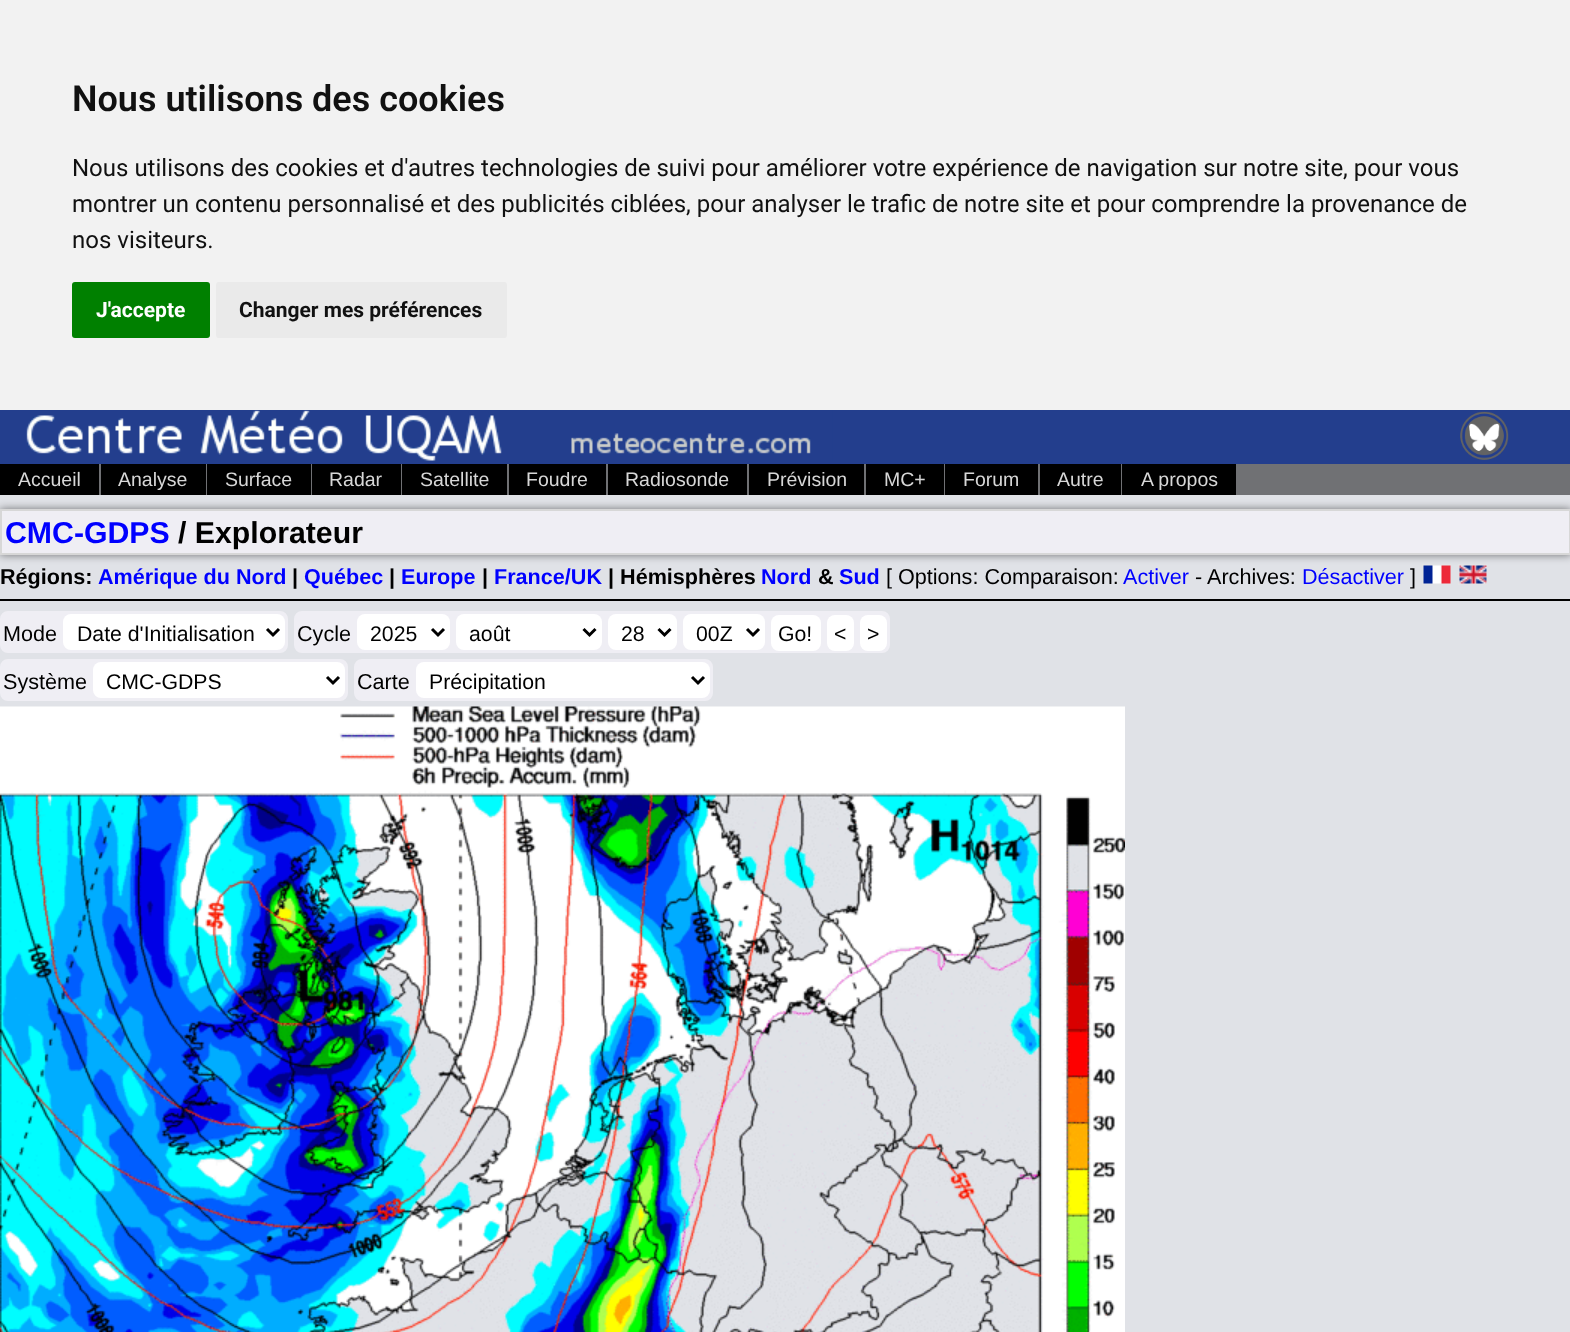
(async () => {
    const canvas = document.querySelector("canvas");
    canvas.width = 1570;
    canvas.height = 1332;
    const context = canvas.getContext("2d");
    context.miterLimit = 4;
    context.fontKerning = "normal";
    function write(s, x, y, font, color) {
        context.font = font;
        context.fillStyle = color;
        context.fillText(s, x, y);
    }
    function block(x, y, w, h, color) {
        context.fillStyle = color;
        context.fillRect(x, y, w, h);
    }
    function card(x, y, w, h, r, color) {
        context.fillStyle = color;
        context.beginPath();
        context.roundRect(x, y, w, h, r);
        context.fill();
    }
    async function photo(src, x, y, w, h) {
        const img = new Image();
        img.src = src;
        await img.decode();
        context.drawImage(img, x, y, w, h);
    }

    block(0, 0, 1570, 1332, "rgb(224, 226, 231)");
    block(0, 0, 1570, 410, "rgb(242, 242, 242)");
    write("Nous utilisons des cookies", 72, 111, "600 36px Roboto", "rgb(17, 17, 17)");
    write("Nous utilisons des cookies et d'autres technologies de suivi pour améliorer votre expérience de navigation sur notre site, pour vous", 72, 176, "24px Roboto", "rgb(17, 17, 17)");
    write("montrer un contenu personnalisé et des publicités ciblées, pour analyser le trafic de notre site et pour comprendre la provenance de", 72, 212, "24px Roboto", "rgb(17, 17, 17)");
    write("nos visiteurs.", 72, 248, "24px Roboto", "rgb(17, 17, 17)");
    card(72, 282, 138, 56, 3, "rgb(0, 128, 0)");
    write("J'accepte", 96, 317, "bold 21px Roboto", "rgb(255, 255, 255)");
    card(216, 282, 291, 56, 3, "rgb(234, 234, 234)");
    write("Changer mes préférences", 239, 317, "bold 21px Roboto", "rgb(17, 17, 17)");
    block(0, 410, 1570, 54, "rgb(35, 62, 141)");
    await photo("media/1.png", 0, 410, 833, 51);
    await photo("media/2.png", 1460, 411, 49, 49);
    block(99, 464, 1471, 31, "rgb(112, 113, 116)");
    block(0, 464, 99, 31, "rgb(0, 0, 0)");
    write("Accueil", 18, 486, "19.5px Liberation Sans", "rgb(215, 215, 215)");
    block(101, 464, 105, 31, "rgb(0, 0, 0)");
    write("Analyse", 118, 486, "19.5px Liberation Sans", "rgb(215, 215, 215)");
    block(207, 464, 104, 31, "rgb(0, 0, 0)");
    write("Surface", 225, 486, "19.5px Liberation Sans", "rgb(215, 215, 215)");
    block(312, 464, 89, 31, "rgb(0, 0, 0)");
    write("Radar", 329, 486, "19.5px Liberation Sans", "rgb(215, 215, 215)");
    block(402, 464, 105, 31, "rgb(0, 0, 0)");
    write("Satellite", 420, 486, "19.5px Liberation Sans", "rgb(215, 215, 215)");
    block(509, 464, 97, 31, "rgb(0, 0, 0)");
    write("Foudre", 526, 486, "19.5px Liberation Sans", "rgb(215, 215, 215)");
    block(608, 464, 139, 31, "rgb(0, 0, 0)");
    write("Radiosonde", 625, 486, "19.5px Liberation Sans", "rgb(215, 215, 215)");
    block(749, 464, 115, 31, "rgb(0, 0, 0)");
    write("Prévision", 767, 486, "19.5px Liberation Sans", "rgb(215, 215, 215)");
    block(866, 464, 78, 31, "rgb(0, 0, 0)");
    write("MC+", 884, 486, "19.5px Liberation Sans", "rgb(215, 215, 215)");
    block(945, 464, 93, 31, "rgb(0, 0, 0)");
    write("Forum", 963, 486, "19.5px Liberation Sans", "rgb(215, 215, 215)");
    block(1040, 464, 81, 31, "rgb(0, 0, 0)");
    write("Autre", 1057, 486, "19.5px Liberation Sans", "rgb(215, 215, 215)");
    block(1122, 464, 114, 31, "rgb(0, 0, 0)");
    write("A propos", 1141, 486, "19.5px Liberation Sans", "rgb(215, 215, 215)");
    context.fillStyle = "rgba(0, 0, 0, 0.5)";
    context.filter = "blur(4px)";
    context.beginPath();
    context.rect(0, 509, 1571, 46);
    context.fill();
    context.filter = "none";
    context.fillStyle = "rgb(239, 238, 244)";
    context.beginPath();
    context.rect(1, 510, 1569, 44);
    context.fill();
    context.strokeStyle = "rgb(215, 215, 215)";
    context.lineWidth = 2;
    context.stroke();
    write("CMC-GDPS", 5, 543, "bold 30.25px Liberation Sans", "rgb(0, 0, 255)");
    write("/ Explorateur", 178, 543, "bold 30.25px Liberation Sans", "rgb(0, 0, 0)");
    write("Régions:", 0, 584, "bold 21.6px Liberation Sans", "rgb(0, 0, 0)");
    write("Amérique du Nord", 98, 584, "bold 21.6px Liberation Sans", "rgb(0, 0, 255)");
    write("|", 292, 584, "bold 21.6px Liberation Sans", "rgb(0, 0, 0)");
    write("Québec", 304, 584, "bold 21.6px Liberation Sans", "rgb(0, 0, 255)");
    write("|", 389, 584, "bold 21.6px Liberation Sans", "rgb(0, 0, 0)");
    write("Europe", 401, 584, "bold 21.6px Liberation Sans", "rgb(0, 0, 255)");
    write("|", 482, 584, "bold 21.6px Liberation Sans", "rgb(0, 0, 0)");
    write("France/UK", 494, 584, "bold 21.6px Liberation Sans", "rgb(0, 0, 255)");
    write("| Hémisphères", 608, 584, "bold 21.6px Liberation Sans", "rgb(0, 0, 0)");
    write("Nord", 761, 584, "bold 21.6px Liberation Sans", "rgb(0, 0, 255)");
    write("&", 818, 584, "bold 21.6px Liberation Sans", "rgb(0, 0, 0)");
    write("Sud", 839, 584, "bold 21.6px Liberation Sans", "rgb(0, 0, 255)");
    write("[ Options: Comparaison:", 886, 584, "21.6px Liberation Sans", "rgb(0, 0, 0)");
    write("Activer", 1123, 584, "21.6px Liberation Sans", "rgb(0, 0, 255)");
    write("- Archives:", 1195, 584, "21.6px Liberation Sans", "rgb(0, 0, 0)");
    write("Désactiver", 1302, 584, "21.6px Liberation Sans", "rgb(0, 0, 255)");
    write("]", 1410, 584, "21.6px Liberation Sans", "rgb(0, 0, 0)");
    await photo("media/3.png", 1422, 564, 29, 21);
    await photo("media/4.png", 1458, 564, 29, 21);
    block(0, 599, 1570, 2, "rgb(0, 0, 0)");
    context.fillStyle = "rgb(239, 238, 244)";
    context.beginPath();
    context.roundRect(1, 612, 286, 40, 7);
    context.fill();
    context.strokeStyle = "rgb(239, 238, 244)";
    context.stroke();
    write("Mode", 3, 641, "21.6px Liberation Sans", "rgb(0, 0, 0)");
    card(63, 614, 222, 36, 8, "rgb(255, 255, 255)");
    context.beginPath();
    context.moveTo(267, 629);
    context.lineTo(273, 635);
    context.lineTo(279, 629);
    context.strokeStyle = "rgb(0, 0, 0)";
    context.lineWidth = 3;
    context.stroke();
    write("Date d'Initialisation", 77, 641, "21.25px Liberation Sans", "rgb(0, 0, 0)");
    context.fillStyle = "rgb(239, 238, 244)";
    context.beginPath();
    context.roundRect(295, 612, 594, 40, 7);
    context.fill();
    context.strokeStyle = "rgb(239, 238, 244)";
    context.lineWidth = 2;
    context.stroke();
    write("Cycle", 297, 641, "21.6px Liberation Sans", "rgb(0, 0, 0)");
    card(357, 614, 93, 36, 8, "rgb(255, 255, 255)");
    context.beginPath();
    context.moveTo(432, 629);
    context.lineTo(438, 635);
    context.lineTo(444, 629);
    context.strokeStyle = "rgb(0, 0, 0)";
    context.lineWidth = 3;
    context.stroke();
    write("2025", 370, 641, "21.25px Liberation Sans", "rgb(0, 0, 0)");
    card(456, 614, 146, 36, 8, "rgb(255, 255, 255)");
    context.beginPath();
    context.moveTo(583.5, 629);
    context.lineTo(589.5, 635);
    context.lineTo(595.5, 629);
    context.stroke();
    write("août", 469, 641, "21.25px Liberation Sans", "rgb(0, 0, 0)");
    card(608, 614, 69, 36, 8, "rgb(255, 255, 255)");
    context.beginPath();
    context.moveTo(658.5, 629);
    context.lineTo(664.5, 635);
    context.lineTo(670.5, 629);
    context.stroke();
    write("28", 621, 641, "21.25px Liberation Sans", "rgb(0, 0, 0)");
    card(683, 614, 82, 36, 8, "rgb(255, 255, 255)");
    context.beginPath();
    context.moveTo(747, 629);
    context.lineTo(753, 635);
    context.lineTo(759, 629);
    context.stroke();
    write("00Z", 696, 641, "21.25px Liberation Sans", "rgb(0, 0, 0)");
    card(771, 615, 50, 36, 8, "rgb(255, 255, 255)");
    write("Go!", 778, 641, "21.25px Liberation Sans", "rgb(0, 0, 0)");
    card(827, 615, 27, 36, 8, "rgb(255, 255, 255)");
    write("<", 834, 641, "21.25px Liberation Sans", "rgb(0, 0, 0)");
    card(860, 615, 27, 36, 8, "rgb(255, 255, 255)");
    write(">", 867, 641, "21.25px Liberation Sans", "rgb(0, 0, 0)");
    context.fillStyle = "rgb(239, 238, 244)";
    context.beginPath();
    context.roundRect(1, 660, 346, 40, 7);
    context.fill();
    context.strokeStyle = "rgb(239, 238, 244)";
    context.lineWidth = 2;
    context.stroke();
    write("Système", 3, 689, "21.6px Liberation Sans", "rgb(0, 0, 0)");
    card(93, 662, 252, 36, 8, "rgb(255, 255, 255)");
    context.beginPath();
    context.moveTo(327, 677);
    context.lineTo(333, 683);
    context.lineTo(339, 677);
    context.strokeStyle = "rgb(0, 0, 0)";
    context.lineWidth = 3;
    context.stroke();
    write("CMC-GDPS", 106, 689, "21.25px Liberation Sans", "rgb(0, 0, 0)");
    context.fillStyle = "rgb(239, 238, 244)";
    context.beginPath();
    context.roundRect(355, 660, 357, 40, 7);
    context.fill();
    context.strokeStyle = "rgb(239, 238, 244)";
    context.lineWidth = 2;
    context.stroke();
    write("Carte", 357, 689, "21.6px Liberation Sans", "rgb(0, 0, 0)");
    card(416, 662, 294, 36, 8, "rgb(255, 255, 255)");
    context.beginPath();
    context.moveTo(692, 677);
    context.lineTo(698, 683);
    context.lineTo(704, 677);
    context.strokeStyle = "rgb(0, 0, 0)";
    context.lineWidth = 3;
    context.stroke();
    write("Précipitation", 429, 689, "21.25px Liberation Sans", "rgb(0, 0, 0)");
    await photo("media/5.png", 0, 706, 1125, 626);
})();
